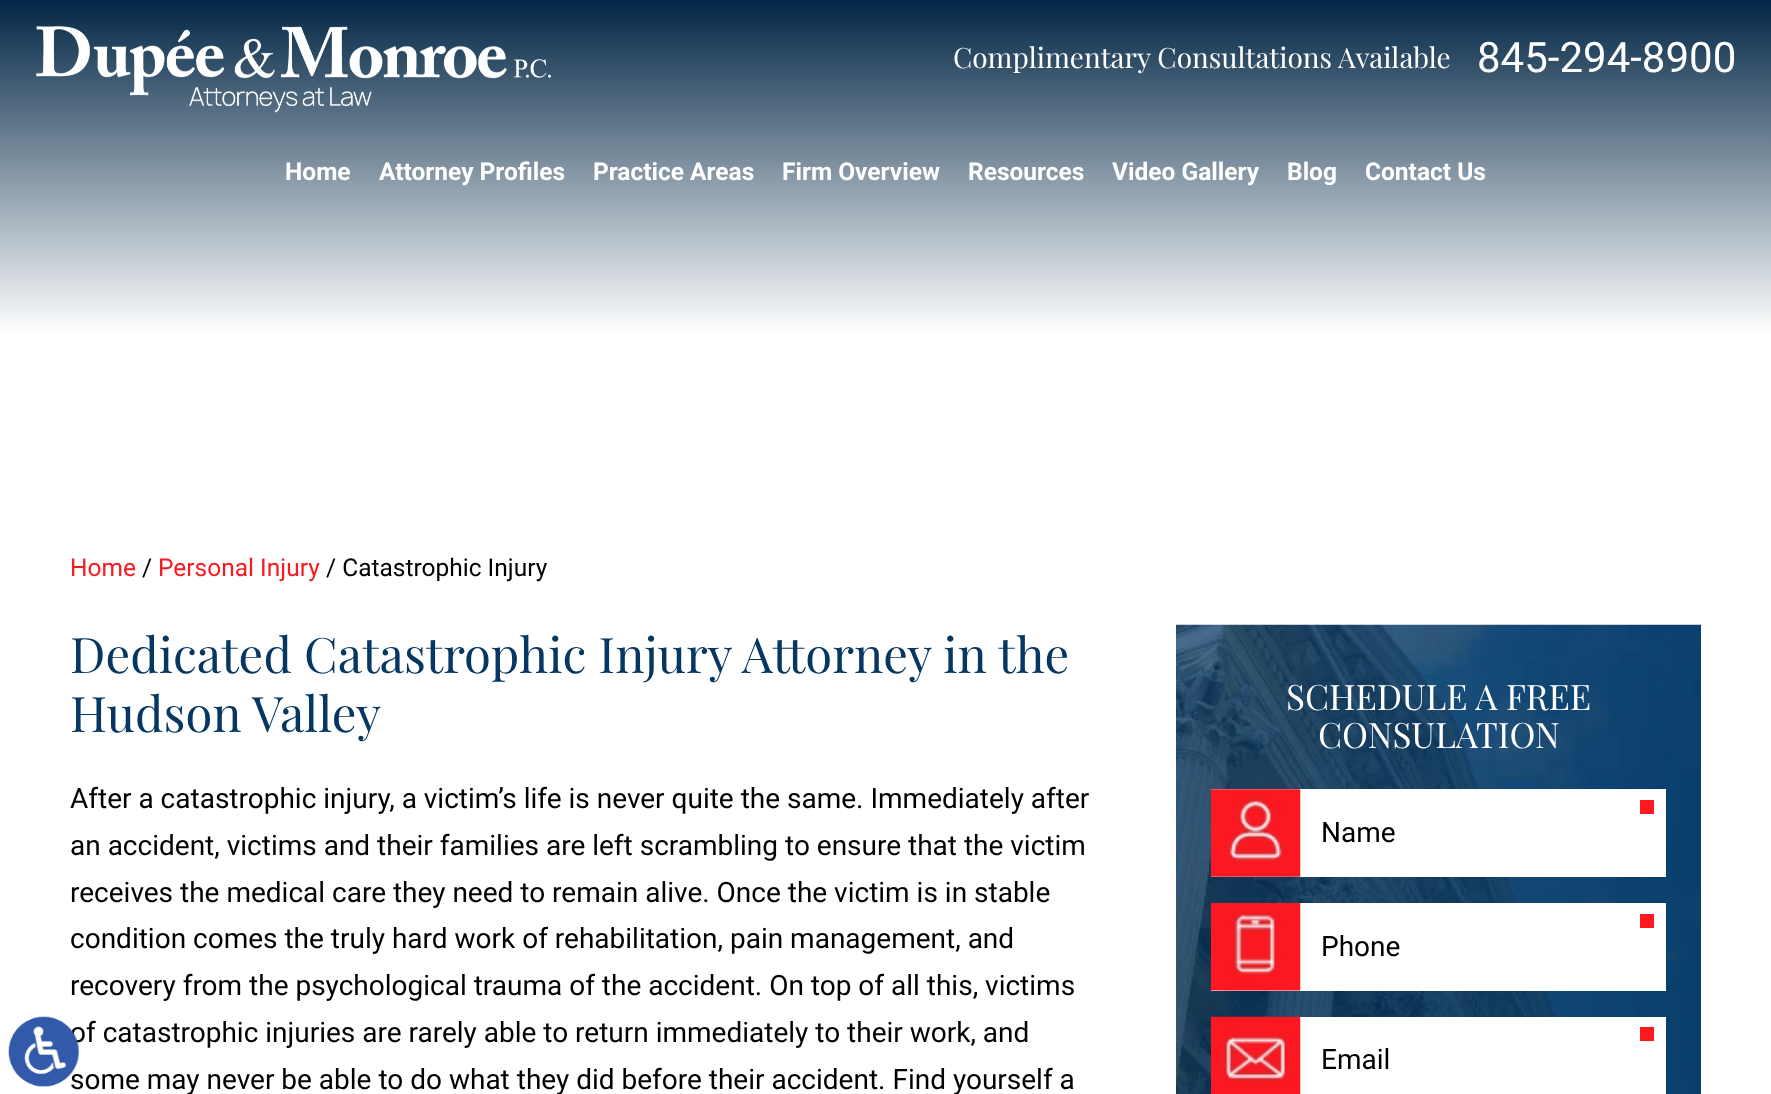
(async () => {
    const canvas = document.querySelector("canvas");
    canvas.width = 1771;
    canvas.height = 1094;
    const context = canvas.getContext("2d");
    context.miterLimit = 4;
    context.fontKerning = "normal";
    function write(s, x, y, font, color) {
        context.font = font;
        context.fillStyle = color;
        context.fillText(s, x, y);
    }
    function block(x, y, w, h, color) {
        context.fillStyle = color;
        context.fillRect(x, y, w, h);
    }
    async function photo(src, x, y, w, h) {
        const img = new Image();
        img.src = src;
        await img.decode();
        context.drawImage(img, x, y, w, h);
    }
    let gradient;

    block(0, 0, 1771, 1094, "rgb(255, 255, 255)");
    write("of catastrophic injuries are rarely able to return immediately to their work, and", 70, 1042, "28px Roboto", "rgb(0, 0, 0)");
    write("some may never be able to do what they did before their accident. Find yourself a", 70, 1089, "28px Roboto", "rgb(0, 0, 0)");
    await photo("media/1.png", 8, 1016, 71, 71);
    gradient = context.createLinearGradient(886, 0, 886, 334);
    gradient.addColorStop(0, "rgb(2, 38, 69)");
    gradient.addColorStop(1, "rgb(255, 255, 255)");
    context.fillStyle = gradient;
    context.fillRect(0, 0, 1771, 331);
    await photo("media/2.png", 36, 26, 515, 87);
    write("Complimentary Consultations Available", 953, 68, "28px Playfair Display", "rgb(255, 255, 255)");
    write("845-294-8900", 1477, 72, "42px Roboto", "rgb(255, 255, 255)");
    write("Home", 285, 180, "bold 24.5px Roboto", "rgb(255, 255, 255)");
    write("Attorney Profiles", 379, 180, "bold 24.5px Roboto", "rgb(255, 255, 255)");
    write("Practice Areas", 593, 180, "bold 24.5px Roboto", "rgb(255, 255, 255)");
    write("Firm Overview", 782, 180, "bold 24.5px Roboto", "rgb(255, 255, 255)");
    write("Resources", 968, 180, "bold 24.5px Roboto", "rgb(255, 255, 255)");
    write("Video Gallery", 1112, 180, "bold 24.5px Roboto", "rgb(255, 255, 255)");
    write("Blog", 1287, 180, "bold 24.5px Roboto", "rgb(255, 255, 255)");
    write("Contact Us", 1365, 180, "bold 24.5px Roboto", "rgb(255, 255, 255)");
    write("Home", 70, 576, "24.5px Roboto", "rgb(251, 25, 33)");
    write("/", 142, 576, "24.5px Roboto", "rgb(0, 0, 0)");
    write("Personal Injury", 158, 576, "24.5px Roboto", "rgb(251, 25, 33)");
    write("/ Catastrophic Injury", 326, 576, "24.5px Roboto", "rgb(0, 0, 0)");
    write("Dedicated Catastrophic Injury Attorney in the", 70, 673, "49px Playfair Display", "rgb(5, 55, 98)");
    write("Hudson Valley", 70, 732, "49px Playfair Display", "rgb(5, 55, 98)");
    write("After a catastrophic injury, a victim’s life is never quite the same. Immediately after", 70, 808, "28px Roboto", "rgb(0, 0, 0)");
    write("an accident, victims and their families are left scrambling to ensure that the victim", 70, 855, "28px Roboto", "rgb(0, 0, 0)");
    write("receives the medical care they need to remain alive. Once the victim is in stable", 70, 902, "28px Roboto", "rgb(0, 0, 0)");
    write("condition comes the truly hard work of rehabilitation, pain management, and", 70, 948, "28px Roboto", "rgb(0, 0, 0)");
    write("recovery from the psychological trauma of the accident. On top of all this, victims", 70, 995, "28px Roboto", "rgb(0, 0, 0)");
    await photo("media/3.png", 1176, 624, 525, 470);
    write("SCHEDULE A FREE", 1286, 710, "35px Playfair Display", "rgb(255, 255, 255)");
    write("CONSULATION", 1318, 748, "35px Playfair Display", "rgb(255, 255, 255)");
    block(1211, 789, 455, 88, "rgb(255, 255, 255)");
    await photo("media/4.png", 1211, 789, 90, 88);
    block(1640, 800, 14, 14, "rgb(251, 25, 33)");
    write("Name", 1321, 842, "28px Roboto", "rgb(0, 0, 0)");
    block(1211, 903, 455, 88, "rgb(255, 255, 255)");
    await photo("media/5.png", 1211, 903, 90, 88);
    block(1640, 914, 14, 14, "rgb(251, 25, 33)");
    write("Phone", 1321, 956, "28px Roboto", "rgb(0, 0, 0)");
    block(1300, 1017, 366, 77, "rgb(255, 255, 255)");
    await photo("media/6.png", 1211, 1016, 90, 78);
    block(1640, 1027, 14, 14, "rgb(251, 25, 33)");
    write("Email", 1321, 1069, "28px Roboto", "rgb(0, 0, 0)");
})();
